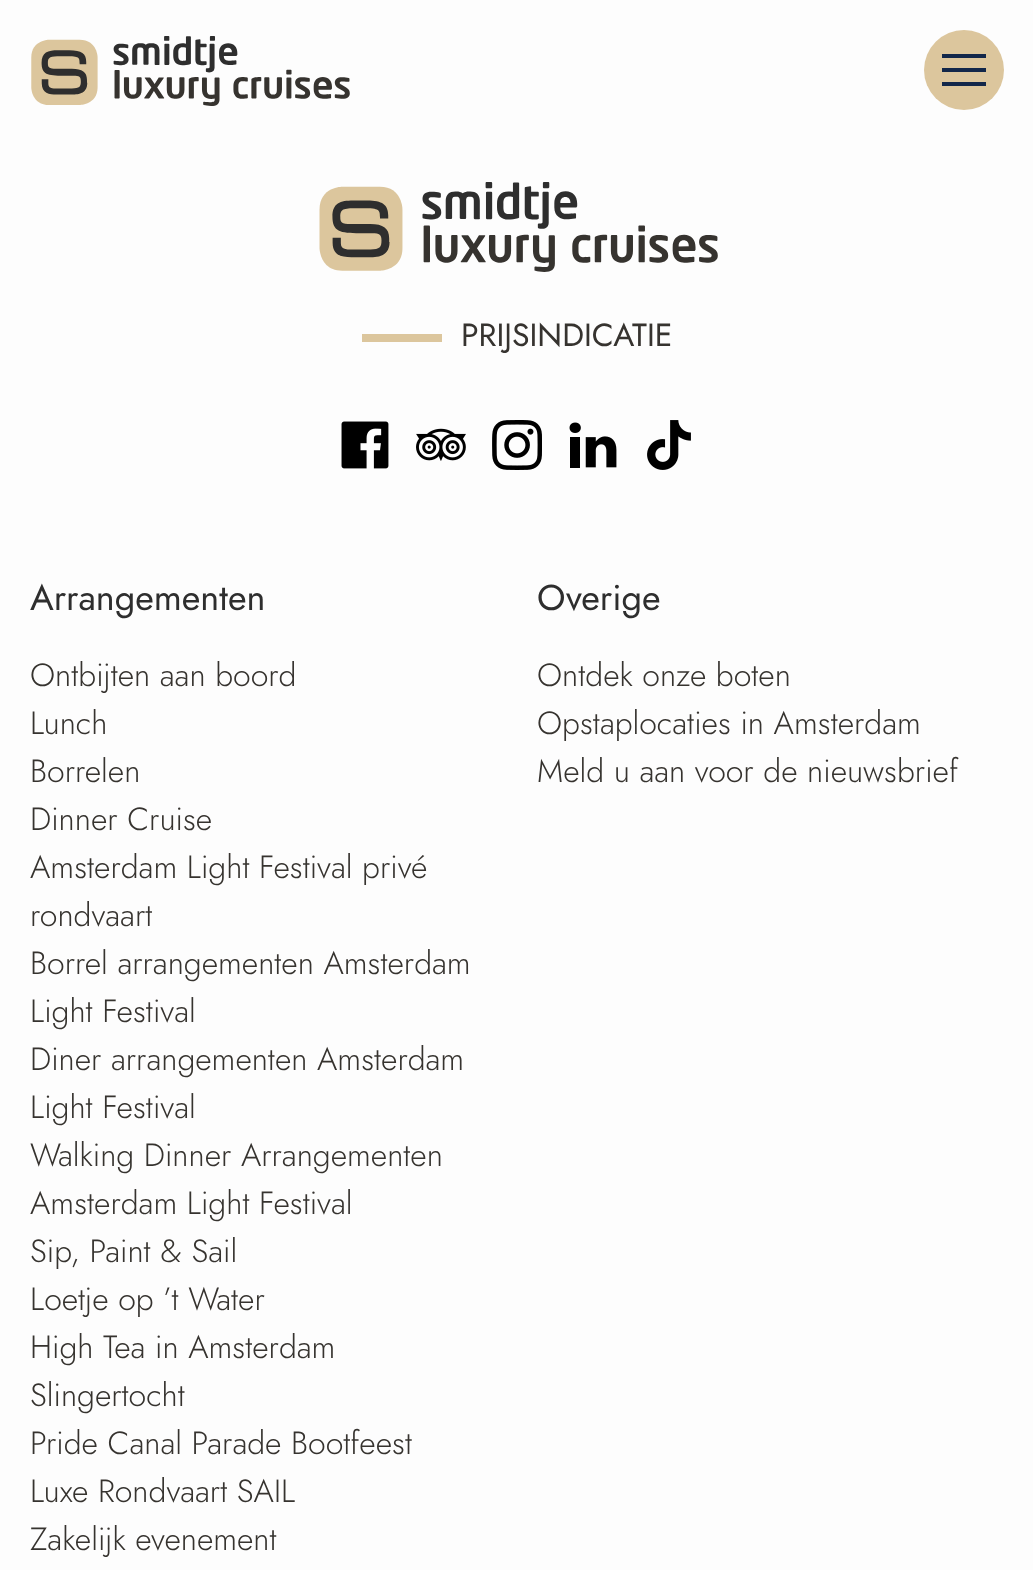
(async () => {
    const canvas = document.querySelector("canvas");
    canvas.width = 1033;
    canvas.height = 1570;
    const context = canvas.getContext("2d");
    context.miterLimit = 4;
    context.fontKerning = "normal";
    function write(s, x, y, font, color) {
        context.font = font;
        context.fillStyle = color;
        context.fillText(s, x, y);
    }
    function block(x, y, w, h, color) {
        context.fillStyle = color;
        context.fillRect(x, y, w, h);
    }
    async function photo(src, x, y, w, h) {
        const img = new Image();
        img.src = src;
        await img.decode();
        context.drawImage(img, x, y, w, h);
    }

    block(0, 0, 1033, 1570, "rgb(253, 253, 253)");
    await photo("media/1.png", 31, 36, 319, 70);
    context.fillStyle = "rgb(220, 198, 157)";
    context.beginPath();
    context.arc(964, 70, 40, 0, Math.PI * 2);
    context.fill();
    block(942, 54, 44, 4, "rgb(18, 39, 74)");
    block(942, 68, 44, 4, "rgb(18, 39, 74)");
    block(942, 82, 44, 4, "rgb(18, 39, 74)");
    await photo("media/2.png", 319, 182, 399, 90);
    block(362, 334, 80, 8, "rgb(220, 198, 157)");
    write("PRIJSINDICATIE", 461, 346, "32px Jost", "rgb(54, 51, 47)");
    await photo("media/3.png", 341, 421, 48, 48);
    await photo("media/4.png", 416, 428, 50, 33);
    await photo("media/5.png", 492, 420, 50, 50);
    await photo("media/6.png", 569, 422, 48, 46);
    await photo("media/7.png", 647, 420, 44, 50);
    write("Arrangementen", 30, 610, "36px Jost", "rgb(46, 46, 46)");
    write("Ontbijten aan boord", 30, 686, "300 32px Jost", "rgb(54, 51, 47)");
    write("Lunch", 30, 734, "300 32px Jost", "rgb(54, 51, 47)");
    write("Borrelen", 30, 782, "300 32px Jost", "rgb(54, 51, 47)");
    write("Dinner Cruise", 30, 830, "300 32px Jost", "rgb(54, 51, 47)");
    write("Amsterdam Light Festival privé", 30, 878, "300 32px Jost", "rgb(54, 51, 47)");
    write("rondvaart", 30, 926, "300 32px Jost", "rgb(54, 51, 47)");
    write("Borrel arrangementen Amsterdam", 30, 974, "300 32px Jost", "rgb(54, 51, 47)");
    write("Light Festival", 30, 1022, "300 32px Jost", "rgb(54, 51, 47)");
    write("Diner arrangementen Amsterdam", 30, 1070, "300 32px Jost", "rgb(54, 51, 47)");
    write("Light Festival", 30, 1118, "300 32px Jost", "rgb(54, 51, 47)");
    write("Walking Dinner Arrangementen", 30, 1166, "300 32px Jost", "rgb(54, 51, 47)");
    write("Amsterdam Light Festival", 30, 1214, "300 32px Jost", "rgb(54, 51, 47)");
    write("Sip, Paint & Sail", 30, 1262, "300 32px Jost", "rgb(54, 51, 47)");
    write("Loetje op ’t Water", 30, 1310, "300 32px Jost", "rgb(54, 51, 47)");
    write("High Tea in Amsterdam", 30, 1358, "300 32px Jost", "rgb(54, 51, 47)");
    write("Slingertocht", 30, 1406, "300 32px Jost", "rgb(54, 51, 47)");
    write("Pride Canal Parade Bootfeest", 30, 1454, "300 32px Jost", "rgb(54, 51, 47)");
    write("Luxe Rondvaart SAIL", 30, 1502, "300 32px Jost", "rgb(54, 51, 47)");
    write("Zakelijk evenement", 30, 1550, "300 32px Jost", "rgb(54, 51, 47)");
    write("Overige", 537, 610, "36px Jost", "rgb(46, 46, 46)");
    write("Ontdek onze boten", 537, 686, "300 32px Jost", "rgb(54, 51, 47)");
    write("Opstaplocaties in Amsterdam", 537, 734, "300 32px Jost", "rgb(54, 51, 47)");
    write("Meld u aan voor de nieuwsbrief", 537, 782, "300 32px Jost", "rgb(54, 51, 47)");
})();
